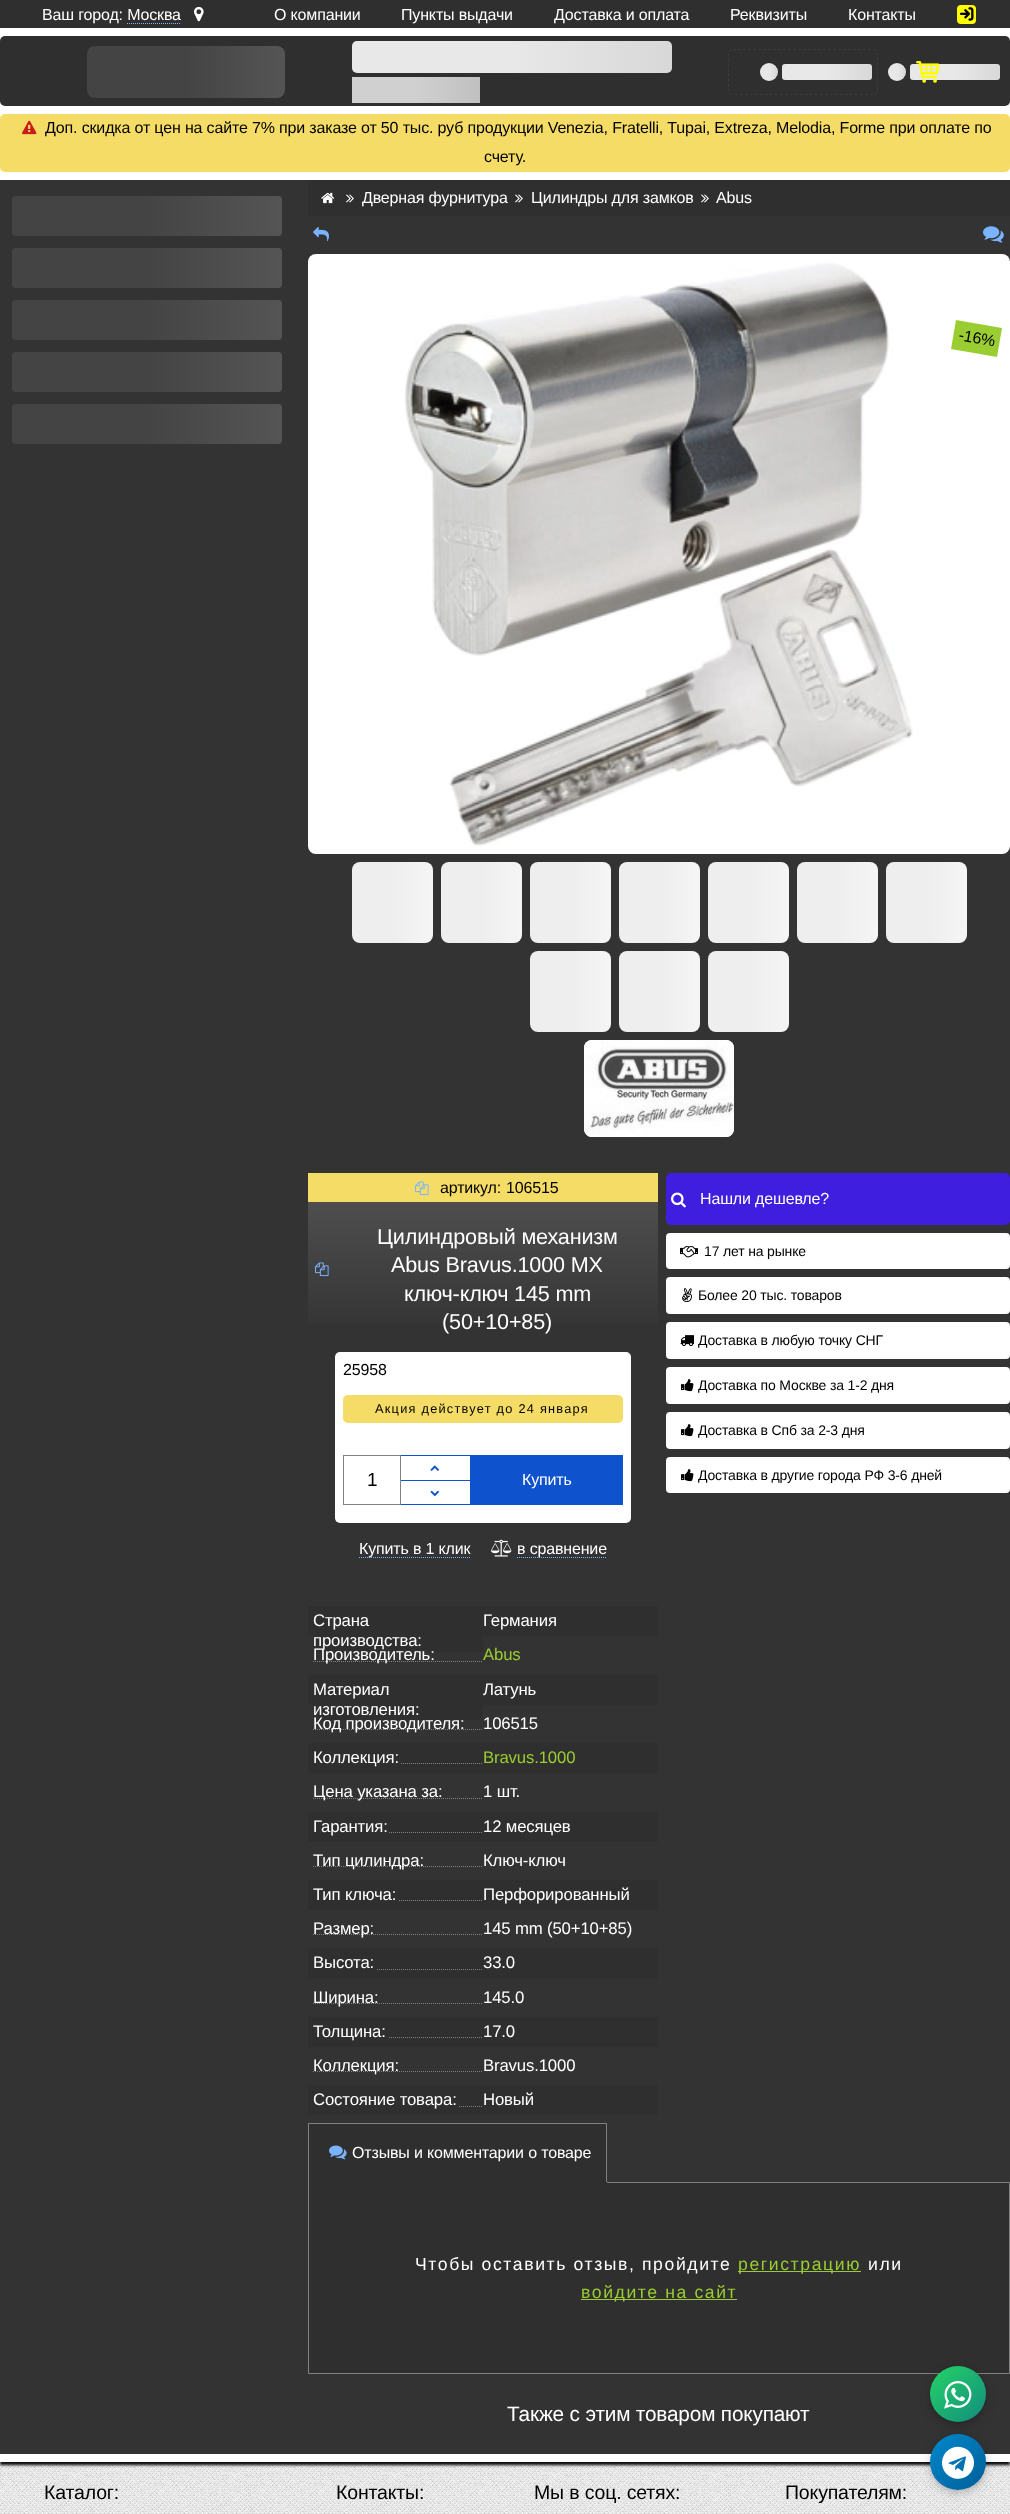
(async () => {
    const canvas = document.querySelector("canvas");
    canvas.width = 1010;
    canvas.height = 2514;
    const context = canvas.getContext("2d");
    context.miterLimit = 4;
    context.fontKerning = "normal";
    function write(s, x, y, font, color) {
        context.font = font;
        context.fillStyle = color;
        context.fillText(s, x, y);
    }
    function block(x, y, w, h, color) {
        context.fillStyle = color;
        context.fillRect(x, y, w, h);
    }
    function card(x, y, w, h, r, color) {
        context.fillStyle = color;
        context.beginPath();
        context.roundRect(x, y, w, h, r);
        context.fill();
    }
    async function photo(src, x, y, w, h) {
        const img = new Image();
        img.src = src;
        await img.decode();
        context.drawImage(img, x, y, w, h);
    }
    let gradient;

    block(0, 0, 1010, 2514, "rgb(255, 255, 255)");
    block(0, 0, 1010, 28, "rgb(48, 47, 47)");
    context.letterSpacing = "-0.16px";
    write("Ваш город: Москва", 42, 20, "16px Liberation Sans", "rgb(255, 255, 255)");
    await photo("media/1.png", 194, 6, 10, 16);
    context.beginPath();
    context.moveTo(127, 23.5);
    context.lineTo(180, 23.5);
    context.strokeStyle = "rgb(122, 179, 255)";
    context.setLineDash([1, 1]);
    context.stroke();
    write("О компании", 274, 20, "16px Liberation Sans", "rgb(255, 255, 255)");
    write("Пункты выдачи", 401, 20, "16px Liberation Sans", "rgb(255, 255, 255)");
    write("Доставка и оплата", 554, 20, "16px Liberation Sans", "rgb(255, 255, 255)");
    write("Реквизиты", 730, 20, "16px Liberation Sans", "rgb(255, 255, 255)");
    write("Контакты", 848, 20, "16px Liberation Sans", "rgb(255, 255, 255)");
    card(957, 5, 19, 19, 4, "rgb(255, 255, 0)");
    await photo("media/2.png", 960, 7, 14, 14);
    card(0, 36, 1010, 70, 5, "rgb(48, 47, 47)");
    gradient = context.createLinearGradient(87, 72, 483, 72);
    gradient.addColorStop(0.25, "rgb(68, 68, 68)");
    gradient.addColorStop(0.5, "rgb(85, 85, 85)");
    gradient.addColorStop(0.75, "rgb(68, 68, 68)");
    context.fillStyle = gradient;
    context.beginPath();
    context.roundRect(87, 46, 198, 52, 8);
    context.fill();
    gradient = context.createLinearGradient(352, 57, 992, 57);
    gradient.addColorStop(0.25, "rgb(232, 232, 232)");
    gradient.addColorStop(0.5, "rgb(216, 216, 216)");
    gradient.addColorStop(0.75, "rgb(232, 232, 232)");
    context.fillStyle = gradient;
    context.beginPath();
    context.roundRect(352, 41, 320, 32, 5);
    context.fill();
    gradient = context.createLinearGradient(352, 90, 608, 90);
    gradient.addColorStop(0.25, "rgb(208, 208, 208)");
    gradient.addColorStop(0.5, "rgb(192, 192, 192)");
    gradient.addColorStop(0.75, "rgb(208, 208, 208)");
    context.fillStyle = gradient;
    context.fillRect(352, 77, 128, 26);
    context.beginPath();
    context.moveTo(733, 49.5);
    context.lineTo(873, 49.5);
    context.bezierCurveTo(875.5, 49.5, 877.5, 51.5, 877.5, 54);
    context.lineTo(877.5, 90);
    context.bezierCurveTo(877.5, 92.5, 875.5, 94.5, 873, 94.5);
    context.lineTo(733, 94.5);
    context.bezierCurveTo(730.5, 94.5, 728.5, 92.5, 728.5, 90);
    context.lineTo(728.5, 54);
    context.bezierCurveTo(728.5, 51.5, 730.5, 49.5, 733, 49.5);
    context.closePath();
    context.strokeStyle = "rgb(59, 59, 59)";
    context.setLineDash([3, 2]);
    context.stroke();
    gradient = context.createLinearGradient(760, 72, 796, 72);
    gradient.addColorStop(0.25, "rgb(232, 232, 232)");
    gradient.addColorStop(0.5, "rgb(216, 216, 216)");
    gradient.addColorStop(0.75, "rgb(232, 232, 232)");
    context.fillStyle = gradient;
    context.beginPath();
    context.arc(769, 72, 9, 0, Math.PI * 2);
    context.fill();
    gradient = context.createLinearGradient(782, 72, 962, 72);
    gradient.addColorStop(0.25, "rgb(232, 232, 232)");
    gradient.addColorStop(0.5, "rgb(216, 216, 216)");
    gradient.addColorStop(0.75, "rgb(232, 232, 232)");
    context.fillStyle = gradient;
    context.beginPath();
    context.roundRect(782, 64, 90, 16, 3);
    context.fill();
    gradient = context.createLinearGradient(888, 72, 924, 72);
    gradient.addColorStop(0.25, "rgb(232, 232, 232)");
    gradient.addColorStop(0.5, "rgb(216, 216, 216)");
    gradient.addColorStop(0.75, "rgb(232, 232, 232)");
    context.fillStyle = gradient;
    context.beginPath();
    context.arc(897, 72, 9, 0, Math.PI * 2);
    context.fill();
    gradient = context.createLinearGradient(910, 72, 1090, 72);
    gradient.addColorStop(0.25, "rgb(232, 232, 232)");
    gradient.addColorStop(0.5, "rgb(216, 216, 216)");
    gradient.addColorStop(0.75, "rgb(232, 232, 232)");
    context.fillStyle = gradient;
    context.beginPath();
    context.roundRect(910, 64, 90, 16, 3);
    context.fill();
    await photo("media/3.png", 916, 61, 24, 22);
    card(0, 114, 1010, 58, 5, "rgb(245, 220, 102)");
    await photo("media/4.png", 22, 120, 15, 15);
    write("Доп. скидка от цен на сайте 7% при заказе от 50 тыс. руб продукции Venezia, Fratelli, Tupai, Extreza, Melodia, Forme при оплате по", 45, 133, "16px Liberation Sans", "rgb(0, 0, 0)");
    write("счету.", 484, 162, "16px Liberation Sans", "rgb(0, 0, 0)");
    block(0, 180, 1010, 2274, "rgb(51, 51, 51)");
    gradient = context.createLinearGradient(12, 216, 552, 216);
    gradient.addColorStop(0.25, "rgb(68, 68, 68)");
    gradient.addColorStop(0.5, "rgb(85, 85, 85)");
    gradient.addColorStop(0.75, "rgb(68, 68, 68)");
    context.fillStyle = gradient;
    context.beginPath();
    context.roundRect(12, 196, 270, 40, 4);
    context.fill();
    gradient = context.createLinearGradient(12, 268, 552, 268);
    gradient.addColorStop(0.25, "rgb(68, 68, 68)");
    gradient.addColorStop(0.5, "rgb(85, 85, 85)");
    gradient.addColorStop(0.75, "rgb(68, 68, 68)");
    context.fillStyle = gradient;
    context.beginPath();
    context.roundRect(12, 248, 270, 40, 4);
    context.fill();
    gradient = context.createLinearGradient(12, 320, 552, 320);
    gradient.addColorStop(0.25, "rgb(68, 68, 68)");
    gradient.addColorStop(0.5, "rgb(85, 85, 85)");
    gradient.addColorStop(0.75, "rgb(68, 68, 68)");
    context.fillStyle = gradient;
    context.beginPath();
    context.roundRect(12, 300, 270, 40, 4);
    context.fill();
    gradient = context.createLinearGradient(12, 372, 552, 372);
    gradient.addColorStop(0.25, "rgb(68, 68, 68)");
    gradient.addColorStop(0.5, "rgb(85, 85, 85)");
    gradient.addColorStop(0.75, "rgb(68, 68, 68)");
    context.fillStyle = gradient;
    context.beginPath();
    context.roundRect(12, 352, 270, 40, 4);
    context.fill();
    gradient = context.createLinearGradient(12, 424, 552, 424);
    gradient.addColorStop(0.25, "rgb(68, 68, 68)");
    gradient.addColorStop(0.5, "rgb(85, 85, 85)");
    gradient.addColorStop(0.75, "rgb(68, 68, 68)");
    context.fillStyle = gradient;
    context.beginPath();
    context.roundRect(12, 404, 270, 40, 4);
    context.fill();
    block(308, 180, 702, 36, "rgb(48, 47, 47)");
    await photo("media/5.png", 321, 192, 14, 12);
    await photo("media/6.png", 346, 194, 8, 9);
    write("Дверная фурнитура", 362, 203, "16px Liberation Sans", "rgb(255, 255, 255)");
    await photo("media/6.png", 515, 194, 8, 9);
    write("Цилиндры для замков", 531, 203, "16px Liberation Sans", "rgb(255, 255, 255)");
    await photo("media/6.png", 701, 194, 8, 9);
    write("Abus", 716, 203, "16px Liberation Sans", "rgb(255, 255, 255)");
    await photo("media/7.png", 313, 227, 16, 15);
    await photo("media/8.png", 983, 226, 21, 17);
    card(308, 254, 702, 600, 8, "rgb(255, 255, 255)");
    await photo("media/9.png", 405, 263, 508, 583);
    context.fillStyle = "rgb(154, 205, 50)";
    context.beginPath();
    context.moveTo(956, 320);
    context.lineTo(1002, 328);
    context.lineTo(997, 357);
    context.lineTo(951, 349);
    context.closePath();
    context.fill();
    context.fillStyle = "rgb(0, 0, 0)";
    context.save();
    context.translate(958, 340);
    context.rotate(10 * Math.PI / 180);
    context.fillText("-16%", 0, 0);
    context.restore();
    gradient = context.createLinearGradient(352, 903, 514, 903);
    gradient.addColorStop(0.25, "rgb(238, 238, 238)");
    gradient.addColorStop(0.5, "rgb(245, 245, 245)");
    gradient.addColorStop(0.75, "rgb(238, 238, 238)");
    context.fillStyle = gradient;
    context.beginPath();
    context.roundRect(352, 862, 81, 81, 8);
    context.fill();
    gradient = context.createLinearGradient(441, 903, 603, 903);
    gradient.addColorStop(0.25, "rgb(238, 238, 238)");
    gradient.addColorStop(0.5, "rgb(245, 245, 245)");
    gradient.addColorStop(0.75, "rgb(238, 238, 238)");
    context.fillStyle = gradient;
    context.beginPath();
    context.roundRect(441, 862, 81, 81, 8);
    context.fill();
    gradient = context.createLinearGradient(530, 903, 692, 903);
    gradient.addColorStop(0.25, "rgb(238, 238, 238)");
    gradient.addColorStop(0.5, "rgb(245, 245, 245)");
    gradient.addColorStop(0.75, "rgb(238, 238, 238)");
    context.fillStyle = gradient;
    context.beginPath();
    context.roundRect(530, 862, 81, 81, 8);
    context.fill();
    gradient = context.createLinearGradient(619, 903, 781, 903);
    gradient.addColorStop(0.25, "rgb(238, 238, 238)");
    gradient.addColorStop(0.5, "rgb(245, 245, 245)");
    gradient.addColorStop(0.75, "rgb(238, 238, 238)");
    context.fillStyle = gradient;
    context.beginPath();
    context.roundRect(619, 862, 81, 81, 8);
    context.fill();
    gradient = context.createLinearGradient(708, 903, 870, 903);
    gradient.addColorStop(0.25, "rgb(238, 238, 238)");
    gradient.addColorStop(0.5, "rgb(245, 245, 245)");
    gradient.addColorStop(0.75, "rgb(238, 238, 238)");
    context.fillStyle = gradient;
    context.beginPath();
    context.roundRect(708, 862, 81, 81, 8);
    context.fill();
    gradient = context.createLinearGradient(797, 903, 959, 903);
    gradient.addColorStop(0.25, "rgb(238, 238, 238)");
    gradient.addColorStop(0.5, "rgb(245, 245, 245)");
    gradient.addColorStop(0.75, "rgb(238, 238, 238)");
    context.fillStyle = gradient;
    context.beginPath();
    context.roundRect(797, 862, 81, 81, 8);
    context.fill();
    gradient = context.createLinearGradient(886, 903, 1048, 903);
    gradient.addColorStop(0.25, "rgb(238, 238, 238)");
    gradient.addColorStop(0.5, "rgb(245, 245, 245)");
    gradient.addColorStop(0.75, "rgb(238, 238, 238)");
    context.fillStyle = gradient;
    context.beginPath();
    context.roundRect(886, 862, 81, 81, 8);
    context.fill();
    gradient = context.createLinearGradient(530, 992, 692, 992);
    gradient.addColorStop(0.25, "rgb(238, 238, 238)");
    gradient.addColorStop(0.5, "rgb(245, 245, 245)");
    gradient.addColorStop(0.75, "rgb(238, 238, 238)");
    context.fillStyle = gradient;
    context.beginPath();
    context.roundRect(530, 951, 81, 81, 8);
    context.fill();
    gradient = context.createLinearGradient(619, 992, 781, 992);
    gradient.addColorStop(0.25, "rgb(238, 238, 238)");
    gradient.addColorStop(0.5, "rgb(245, 245, 245)");
    gradient.addColorStop(0.75, "rgb(238, 238, 238)");
    context.fillStyle = gradient;
    context.beginPath();
    context.roundRect(619, 951, 81, 81, 8);
    context.fill();
    gradient = context.createLinearGradient(708, 992, 870, 992);
    gradient.addColorStop(0.25, "rgb(238, 238, 238)");
    gradient.addColorStop(0.5, "rgb(245, 245, 245)");
    gradient.addColorStop(0.75, "rgb(238, 238, 238)");
    context.fillStyle = gradient;
    context.beginPath();
    context.roundRect(708, 951, 81, 81, 8);
    context.fill();
    card(584, 1040, 150, 97, 8, "rgb(255, 255, 255)");
    await photo("media/10.png", 584, 1040, 150, 97);
    gradient = context.createLinearGradient(483, 1173, 483, 1336);
    gradient.addColorStop(0, "rgb(84, 84, 84)");
    gradient.addColorStop(1, "rgb(51, 51, 51)");
    context.fillStyle = gradient;
    context.fillRect(308, 1202, 350, 122);
    block(308, 1173, 350, 29, "rgb(245, 220, 102)");
    await photo("media/11.png", 415, 1181, 14, 15);
    write("артикул:", 440, 1193, "16px Liberation Sans", "rgb(0, 0, 0)");
    write("106515", 506, 1193, "16px Liberation Sans", "rgb(0, 0, 0)");
    await photo("media/12.png", 315, 1262, 14, 15);
    write("Цилиндровый механизм", 377, 1244, "21.6px Liberation Sans", "rgb(255, 255, 255)");
    write("Abus Bravus.1000 MX", 391, 1272, "21.6px Liberation Sans", "rgb(255, 255, 255)");
    write("ключ-ключ 145 mm", 404, 1301, "21.6px Liberation Sans", "rgb(255, 255, 255)");
    write("(50+10+85)", 442, 1329, "21.6px Liberation Sans", "rgb(255, 255, 255)");
    card(335, 1352, 296, 171, 5, "rgb(255, 255, 255)");
    write("25958", 343, 1375, "16px Liberation Sans", "rgb(0, 0, 0)");
    card(343, 1395, 280, 28, 5, "rgb(245, 220, 102)");
    context.letterSpacing = "1.25px";
    write("Акция действует до 24 января", 375, 1413, "12.75px Liberation Sans", "rgb(0, 0, 0)");
    context.strokeStyle = "rgb(128, 128, 128)";
    context.setLineDash([]);
    context.strokeRect(343.5, 1455.5, 57, 49);
    context.letterSpacing = "-0.16px";
    write("1", 367, 1486, "19px Liberation Sans", "rgb(0, 0, 0)");
    block(401, 1455, 69, 1, "rgb(15, 82, 206)");
    await photo("media/13.png", 430, 1465, 10, 6);
    block(401, 1480, 69, 1, "rgb(15, 82, 206)");
    block(401, 1504, 69, 1, "rgb(15, 82, 206)");
    await photo("media/14.png", 430, 1490, 10, 7);
    block(470, 1455, 153, 50, "rgb(15, 82, 206)");
    write("Купить", 522, 1485, "16px Liberation Sans", "rgb(255, 255, 255)");
    context.beginPath();
    context.moveTo(359, 1557.5);
    context.lineTo(470, 1557.5);
    context.strokeStyle = "rgb(122, 179, 255)";
    context.setLineDash([1, 1]);
    context.stroke();
    write("Купить в 1 клик", 359, 1554, "16px Liberation Sans", "rgb(255, 255, 255)");
    await photo("media/15.png", 491, 1539, 21, 18);
    context.beginPath();
    context.moveTo(517, 1557.5);
    context.lineTo(607, 1557.5);
    context.stroke();
    write("в сравнение", 517, 1554, "16px Liberation Sans", "rgb(255, 255, 255)");
    block(308, 1606, 350, 30, "rgb(48, 47, 47)");
    block(313, 1636, 170, 16, "rgb(48, 47, 47)");
    write("Страна", 313, 1626, "16.75px Liberation Sans", "rgb(255, 255, 255)");
    write("производства:", 313, 1646, "16.75px Liberation Sans", "rgb(255, 255, 255)");
    write("Германия", 483, 1626, "16.75px Liberation Sans", "rgb(255, 255, 255)");
    context.beginPath();
    context.moveTo(313, 1661.5);
    context.lineTo(483, 1661.5);
    context.strokeStyle = "rgb(128, 128, 128)";
    context.stroke();
    write("Производитель:", 313, 1660, "16.75px Liberation Sans", "rgb(255, 255, 255)");
    write("Abus", 483, 1660, "16.75px Liberation Sans", "rgb(154, 205, 50)");
    block(308, 1675, 350, 30, "rgb(48, 47, 47)");
    block(313, 1705, 170, 15, "rgb(48, 47, 47)");
    write("Материал", 313, 1695, "16.75px Liberation Sans", "rgb(255, 255, 255)");
    write("изготовления:", 313, 1715, "16.75px Liberation Sans", "rgb(255, 255, 255)");
    write("Латунь", 483, 1695, "16.75px Liberation Sans", "rgb(255, 255, 255)");
    context.beginPath();
    context.moveTo(313, 1729.5);
    context.lineTo(483, 1729.5);
    context.stroke();
    write("Код производителя:", 313, 1729, "16.75px Liberation Sans", "rgb(255, 255, 255)");
    write("106515", 483, 1729, "16.75px Liberation Sans", "rgb(255, 255, 255)");
    block(308, 1743, 350, 30, "rgb(48, 47, 47)");
    context.beginPath();
    context.moveTo(313, 1763.5);
    context.lineTo(483, 1763.5);
    context.stroke();
    block(313, 1763, 87, 1, "rgb(48, 47, 47)");
    write("Коллекция:", 313, 1763, "16.75px Liberation Sans", "rgb(255, 255, 255)");
    write("Bravus.1000", 483, 1763, "16.75px Liberation Sans", "rgb(154, 205, 50)");
    context.beginPath();
    context.moveTo(313, 1798.5);
    context.lineTo(483, 1798.5);
    context.stroke();
    write("Цена указана за:", 313, 1797, "16.75px Liberation Sans", "rgb(255, 255, 255)");
    write("1 шт.", 483, 1797, "16.75px Liberation Sans", "rgb(255, 255, 255)");
    block(308, 1812, 350, 30, "rgb(48, 47, 47)");
    context.beginPath();
    context.moveTo(313, 1832.5);
    context.lineTo(483, 1832.5);
    context.stroke();
    block(313, 1832, 75, 1, "rgb(48, 47, 47)");
    write("Гарантия:", 313, 1832, "16.75px Liberation Sans", "rgb(255, 255, 255)");
    write("12 месяцев", 483, 1832, "16.75px Liberation Sans", "rgb(255, 255, 255)");
    context.beginPath();
    context.moveTo(313, 1866.5);
    context.lineTo(483, 1866.5);
    context.stroke();
    write("Тип цилиндра:", 313, 1866, "16.75px Liberation Sans", "rgb(255, 255, 255)");
    write("Ключ-ключ", 483, 1866, "16.75px Liberation Sans", "rgb(255, 255, 255)");
    block(308, 1880, 350, 30, "rgb(48, 47, 47)");
    context.beginPath();
    context.moveTo(313, 1900.5);
    context.lineTo(483, 1900.5);
    context.stroke();
    block(313, 1900, 85, 1, "rgb(48, 47, 47)");
    write("Тип ключа:", 313, 1900, "16.75px Liberation Sans", "rgb(255, 255, 255)");
    write("Перфорированный", 483, 1900, "16.75px Liberation Sans", "rgb(255, 255, 255)");
    context.beginPath();
    context.moveTo(313, 1934.5);
    context.lineTo(483, 1934.5);
    context.stroke();
    write("Размер:", 313, 1934, "16.75px Liberation Sans", "rgb(255, 255, 255)");
    write("145 mm (50+10+85)", 483, 1934, "16.75px Liberation Sans", "rgb(255, 255, 255)");
    block(308, 1948, 350, 31, "rgb(48, 47, 47)");
    context.beginPath();
    context.moveTo(313, 1969.5);
    context.lineTo(483, 1969.5);
    context.stroke();
    block(313, 1969, 63, 1, "rgb(48, 47, 47)");
    write("Высота:", 313, 1968, "16.75px Liberation Sans", "rgb(255, 255, 255)");
    write("33.0", 483, 1968, "16.75px Liberation Sans", "rgb(255, 255, 255)");
    context.beginPath();
    context.moveTo(313, 2003.5);
    context.lineTo(483, 2003.5);
    context.stroke();
    write("Ширина:", 313, 2003, "16.75px Liberation Sans", "rgb(255, 255, 255)");
    write("145.0", 483, 2003, "16.75px Liberation Sans", "rgb(255, 255, 255)");
    block(308, 2017, 350, 30, "rgb(48, 47, 47)");
    context.beginPath();
    context.moveTo(313, 2037.5);
    context.lineTo(483, 2037.5);
    context.stroke();
    block(313, 2037, 75, 1, "rgb(48, 47, 47)");
    write("Толщина:", 313, 2037, "16.75px Liberation Sans", "rgb(255, 255, 255)");
    write("17.0", 483, 2037, "16.75px Liberation Sans", "rgb(255, 255, 255)");
    context.beginPath();
    context.moveTo(313, 2071.5);
    context.lineTo(483, 2071.5);
    context.stroke();
    write("Коллекция:", 313, 2071, "16.75px Liberation Sans", "rgb(255, 255, 255)");
    write("Bravus.1000", 483, 2071, "16.75px Liberation Sans", "rgb(255, 255, 255)");
    block(308, 2085, 350, 30, "rgb(48, 47, 47)");
    context.beginPath();
    context.moveTo(313, 2106.5);
    context.lineTo(483, 2106.5);
    context.stroke();
    block(313, 2106, 145, 1, "rgb(48, 47, 47)");
    write("Состояние товара:", 313, 2105, "16.75px Liberation Sans", "rgb(255, 255, 255)");
    write("Новый", 483, 2105, "16.75px Liberation Sans", "rgb(255, 255, 255)");
    card(666, 1173, 344, 52, 5, "rgb(64, 30, 223)");
    await photo("media/16.png", 671, 1192, 15, 16);
    write("Нашли дешевле?", 700, 1204, "16px Liberation Sans", "rgb(255, 255, 255)");
    card(666, 1233, 344, 36, 4, "rgb(255, 255, 255)");
    await photo("media/17.png", 680, 1246, 18, 12);
    write("17 лет на рынке", 704, 1256, "14px Liberation Sans", "rgb(0, 0, 0)");
    card(666, 1277, 344, 37, 4, "rgb(255, 255, 255)");
    await photo("media/18.png", 682, 1288, 10, 15);
    write("Более 20 тыс. товаров", 698, 1300, "14px Liberation Sans", "rgb(0, 0, 0)");
    card(666, 1322, 344, 37, 4, "rgb(255, 255, 255)");
    await photo("media/19.png", 680, 1335, 14, 12);
    write("Доставка в любую точку СНГ", 698, 1345, "14px Liberation Sans", "rgb(0, 0, 0)");
    card(666, 1367, 344, 37, 4, "rgb(255, 255, 255)");
    await photo("media/20.png", 681, 1379, 13, 13);
    write("Доставка по Москве за 1-2 дня", 698, 1390, "14px Liberation Sans", "rgb(0, 0, 0)");
    card(666, 1412, 344, 37, 4, "rgb(255, 255, 255)");
    await photo("media/20.png", 681, 1424, 13, 13);
    write("Доставка в Спб за 2-3 дня", 698, 1435, "14px Liberation Sans", "rgb(0, 0, 0)");
    card(666, 1457, 344, 36, 4, "rgb(255, 255, 255)");
    await photo("media/20.png", 681, 1469, 13, 13);
    write("Доставка в другие города РФ 3-6 дней", 698, 1480, "14px Liberation Sans", "rgb(0, 0, 0)");
    block(309, 2124, 297, 58, "rgb(48, 47, 47)");
    block(308, 2123, 299, 1, "rgb(128, 128, 128)");
    context.fillStyle = "rgb(48, 47, 47)";
    context.beginPath();
    context.rect(308.5, 2182.5, 701, 191);
    context.fill();
    context.setLineDash([]);
    context.stroke();
    block(606, 2123, 1, 60, "rgb(128, 128, 128)");
    block(308, 2182, 299, 1, "rgb(48, 47, 47)");
    block(308, 2123, 1, 60, "rgb(128, 128, 128)");
    await photo("media/21.png", 329, 2145, 18, 15);
    write("Отзывы и комментарии о товаре", 352, 2158, "16px Liberation Sans", "rgb(255, 255, 255)");
    context.letterSpacing = "1.6px";
    write("Чтобы оставить отзыв, пройдите", 415, 2270, "17.6px Liberation Sans", "rgb(255, 255, 255)");
    block(738, 2271, 123, 1, "rgb(154, 205, 50)");
    write("регистрацию", 738, 2270, "17.6px Liberation Sans", "rgb(154, 205, 50)");
    write("или", 868, 2270, "17.6px Liberation Sans", "rgb(255, 255, 255)");
    block(581, 2299, 156, 1, "rgb(154, 205, 50)");
    write("войдите на сайт", 581, 2298, "17.6px Liberation Sans", "rgb(154, 205, 50)");
    context.letterSpacing = "-0.16px";
    write("Также с этим товаром покупают", 507, 2421, "20.75px Liberation Sans", "rgb(255, 255, 255)");
    await photo("media/22.png", 0, 2462, 1010, 52);
    context.save();
    context.beginPath();
    context.rect(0, 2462, 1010, 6);
    context.clip();
    context.fillStyle = "rgb(0, 0, 0)";
    context.filter = "blur(1.5px)";
    context.beginPath();
    context.rect(0, 2460, 1010, 5);
    context.fill();
    context.filter = "none";
    context.restore();
    write("Каталог:", 44, 2499, "19.5px Liberation Sans", "rgb(0, 0, 0)");
    write("Контакты:", 336, 2499, "19.5px Liberation Sans", "rgb(0, 0, 0)");
    write("Мы в соц. сетях:", 534, 2499, "19.5px Liberation Sans", "rgb(0, 0, 0)");
    write("Покупателям:", 785, 2499, "19.5px Liberation Sans", "rgb(0, 0, 0)");
    context.fillStyle = "rgba(0, 0, 0, 0.1)";
    context.filter = "blur(2px)";
    context.beginPath();
    context.roundRect(930, 2368, 56, 56, 28);
    context.fill();
    context.filter = "none";
    context.fillStyle = "rgba(0, 0, 0, 0.15)";
    context.filter = "blur(6px)";
    context.beginPath();
    context.roundRect(930, 2370, 56, 56, 28);
    context.fill();
    context.filter = "none";
    gradient = context.createLinearGradient(930, 2366, 986, 2422);
    gradient.addColorStop(0, "rgb(37, 211, 102)");
    gradient.addColorStop(1, "rgb(18, 140, 126)");
    context.fillStyle = gradient;
    context.beginPath();
    context.arc(958, 2394, 28, 0, Math.PI * 2);
    context.fill();
    await photo("media/23.png", 944, 2381, 28, 28);
    context.fillStyle = "rgba(0, 0, 0, 0.1)";
    context.filter = "blur(2px)";
    context.beginPath();
    context.roundRect(930, 2436, 56, 56, 28);
    context.fill();
    context.filter = "none";
    context.fillStyle = "rgba(0, 0, 0, 0.15)";
    context.filter = "blur(6px)";
    context.beginPath();
    context.roundRect(930, 2438, 56, 56, 28);
    context.fill();
    context.filter = "none";
    gradient = context.createLinearGradient(930, 2434, 986, 2490);
    gradient.addColorStop(0, "rgb(0, 136, 204)");
    gradient.addColorStop(1, "rgb(0, 95, 153)");
    context.fillStyle = gradient;
    context.beginPath();
    context.arc(958, 2462, 28, 0, Math.PI * 2);
    context.fill();
    await photo("media/24.png", 942, 2446, 32, 33);
})();
